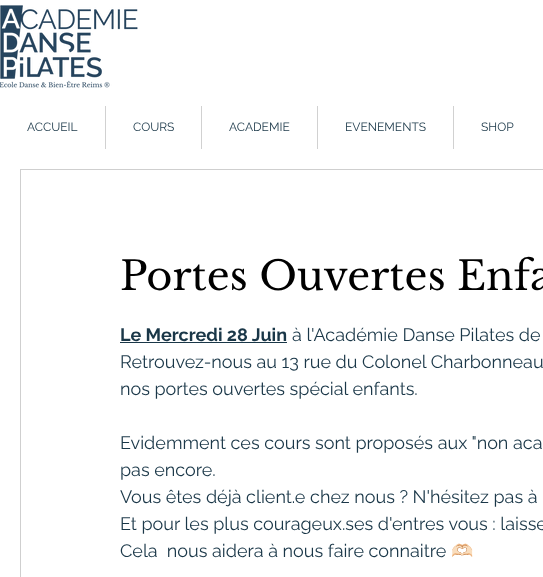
(async () => {
    const canvas = document.querySelector("canvas");
    canvas.width = 543;
    canvas.height = 577;
    const context = canvas.getContext("2d");
    context.miterLimit = 4;
    context.fontKerning = "normal";
    function write(s, x, y, font, color) {
        context.font = font;
        context.fillStyle = color;
        context.fillText(s, x, y);
    }
    function block(x, y, w, h, color) {
        context.fillStyle = color;
        context.fillRect(x, y, w, h);
    }
    async function photo(src, x, y, w, h) {
        const img = new Image();
        img.src = src;
        await img.decode();
        context.drawImage(img, x, y, w, h);
    }

    block(0, 0, 543, 577, "rgb(255, 255, 255)");
    await photo("media/1.png", 0, 5, 138, 83);
    write("ACCUEIL", 27, 131, "12px Raleway", "rgb(26, 55, 72)");
    block(105, 106, 1, 43, "rgb(209, 209, 209)");
    write("COURS", 133, 131, "12px Raleway", "rgb(26, 55, 72)");
    block(201, 106, 1, 43, "rgb(209, 209, 209)");
    write("ACADEMIE", 229, 131, "12px Raleway", "rgb(26, 55, 72)");
    block(317, 106, 1, 43, "rgb(209, 209, 209)");
    write("EVENEMENTS", 345, 131, "12px Raleway", "rgb(26, 55, 72)");
    block(453, 106, 1, 43, "rgb(209, 209, 209)");
    write("SHOP", 481, 131, "12px Raleway", "rgb(26, 55, 72)");
    context.strokeStyle = "rgb(207, 207, 207)";
    context.strokeRect(20.5, 169.5, 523, 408);
    write("Portes Ouvertes Enfa", 120, 290, "40px Libre Baskerville", "rgb(0, 0, 0)");
    write("Le Mercredi 28 Juin", 120, 341, "bold 18px Raleway", "rgb(26, 55, 72)");
    block(120, 342, 167, 1, "rgb(26, 55, 72)");
    write("à l'Académie Danse Pilates de", 292, 341, "18px Raleway", "rgb(26, 55, 72)");
    write("Retrouvez-nous au 13 rue du Colonel Charbonneau", 120, 368, "18px Raleway", "rgb(26, 55, 72)");
    write("nos portes ouvertes spécial enfants.", 120, 395, "18px Raleway", "rgb(26, 55, 72)");
    write("Evidemment ces cours sont proposés aux \"non aca", 120, 449, "18px Raleway", "rgb(26, 55, 72)");
    write("pas encore.", 120, 476, "18px Raleway", "rgb(26, 55, 72)");
    write("Vous êtes déjà client.e chez nous ? N'hésitez pas à", 120, 503, "18px Raleway", "rgb(26, 55, 72)");
    write("Et pour les plus courageux.ses d'entres vous : laisse", 120, 530, "18px Raleway", "rgb(26, 55, 72)");
    write("Cela  nous aidera à nous faire connaitre", 120, 557, "18px Raleway", "rgb(26, 55, 72)");
    write("🫶🏻", 451, 557, "18px Noto Color Emoji", "rgb(26, 55, 72)");
})();
